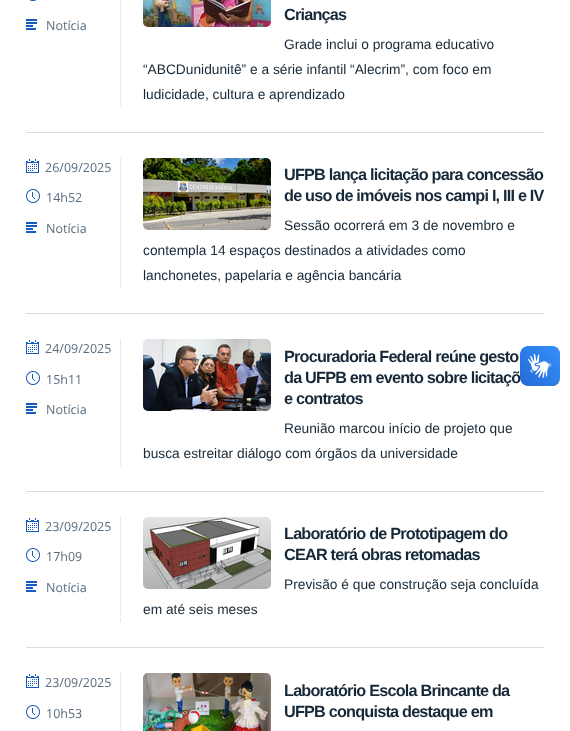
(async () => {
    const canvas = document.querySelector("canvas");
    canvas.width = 570;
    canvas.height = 731;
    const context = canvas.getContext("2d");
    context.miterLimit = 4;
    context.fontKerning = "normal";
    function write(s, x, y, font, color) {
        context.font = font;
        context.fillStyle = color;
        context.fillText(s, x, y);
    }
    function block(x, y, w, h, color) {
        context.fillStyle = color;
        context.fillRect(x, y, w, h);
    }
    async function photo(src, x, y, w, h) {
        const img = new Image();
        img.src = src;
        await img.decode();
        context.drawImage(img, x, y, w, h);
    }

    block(0, 0, 570, 731, "rgb(255, 255, 255)");
    block(26, 132, 518, 1, "rgb(215, 219, 218)");
    await photo("media/1.png", 29, 0, 8, 1);
    await photo("media/2.png", 26, 19, 11, 11);
    write("Notícia", 46, 30, "12.5px Open Sans", "rgb(89, 110, 127)");
    context.beginPath();
    context.moveTo(120.5, -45);
    context.lineTo(120.5, 107);
    context.strokeStyle = "rgb(214, 214, 214)";
    context.setLineDash([1, 1]);
    context.stroke();
    await photo("media/3.png", 143, 0, 128, 27);
    context.letterSpacing = "-0.8px";
    write("Crianças", 284, 20, "bold 16.25px Liberation Sans", "rgb(23, 41, 56)");
    context.letterSpacing = "0px";
    write("Grade inclui o programa educativo", 284, 49, "13.75px Liberation Sans", "rgb(23, 41, 56)");
    write("“ABCDunidunitê” e a série infantil “Alecrim”, com foco em", 143, 74, "13.75px Liberation Sans", "rgb(23, 41, 56)");
    write("ludicidade, cultura e aprendizado", 143, 99, "13.75px Liberation Sans", "rgb(23, 41, 56)");
    block(26, 313, 518, 1, "rgb(215, 219, 218)");
    await photo("media/4.png", 26, 159, 13, 14);
    write("26/09/2025", 45, 172, "12.5px Open Sans", "rgb(89, 110, 127)");
    await photo("media/5.png", 26, 189, 14, 14);
    write("14h52", 46, 202, "12.5px Open Sans", "rgb(89, 110, 127)");
    await photo("media/2.png", 26, 222, 11, 11);
    write("Notícia", 46, 233, "12.5px Open Sans", "rgb(89, 110, 127)");
    context.beginPath();
    context.moveTo(120.5, 158);
    context.lineTo(120.5, 288);
    context.stroke();
    await photo("media/6.png", 143, 158, 128, 72);
    context.letterSpacing = "-0.8px";
    write("UFPB lança licitação para concessão", 284, 180, "bold 16.25px Liberation Sans", "rgb(23, 41, 56)");
    write("de uso de imóveis nos campi I, III e IV", 284, 201, "bold 16.25px Liberation Sans", "rgb(23, 41, 56)");
    context.letterSpacing = "0px";
    write("Sessão ocorrerá em 3 de novembro e", 284, 230, "13.75px Liberation Sans", "rgb(23, 41, 56)");
    write("contempla 14 espaços destinados a atividades como", 143, 255, "13.75px Liberation Sans", "rgb(23, 41, 56)");
    write("lanchonetes, papelaria e agência bancária", 143, 280, "13.75px Liberation Sans", "rgb(23, 41, 56)");
    block(26, 491, 518, 1, "rgb(215, 219, 218)");
    await photo("media/4.png", 26, 340, 13, 14);
    write("24/09/2025", 45, 353, "12.5px Open Sans", "rgb(89, 110, 127)");
    await photo("media/5.png", 26, 371, 14, 14);
    write("15h11", 46, 384, "12.5px Open Sans", "rgb(89, 110, 127)");
    await photo("media/2.png", 26, 403, 11, 11);
    write("Notícia", 46, 414, "12.5px Open Sans", "rgb(89, 110, 127)");
    context.beginPath();
    context.moveTo(120.5, 339);
    context.lineTo(120.5, 466);
    context.stroke();
    await photo("media/7.png", 143, 339, 128, 72);
    context.letterSpacing = "-0.8px";
    write("Procuradoria Federal reúne gesto", 284, 362, "bold 16.25px Liberation Sans", "rgb(23, 41, 56)");
    write("da UFPB em evento sobre licitaçõ", 284, 383, "bold 16.25px Liberation Sans", "rgb(23, 41, 56)");
    write("e contratos", 284, 404, "bold 16.25px Liberation Sans", "rgb(23, 41, 56)");
    context.letterSpacing = "0px";
    write("Reunião marcou início de projeto que", 284, 433, "13.75px Liberation Sans", "rgb(23, 41, 56)");
    write("busca estreitar diálogo com órgãos da universidade", 143, 458, "13.75px Liberation Sans", "rgb(23, 41, 56)");
    block(26, 647, 518, 1, "rgb(215, 219, 218)");
    await photo("media/4.png", 26, 518, 13, 14);
    write("23/09/2025", 45, 531, "12.5px Open Sans", "rgb(89, 110, 127)");
    await photo("media/5.png", 26, 548, 14, 14);
    write("17h09", 46, 561, "12.5px Open Sans", "rgb(89, 110, 127)");
    await photo("media/2.png", 26, 581, 11, 11);
    write("Notícia", 46, 592, "12.5px Open Sans", "rgb(89, 110, 127)");
    context.beginPath();
    context.moveTo(120.5, 517);
    context.lineTo(120.5, 623);
    context.stroke();
    await photo("media/8.png", 143, 517, 128, 72);
    context.letterSpacing = "-0.8px";
    write("Laboratório de Prototipagem do", 284, 539, "bold 16.25px Liberation Sans", "rgb(23, 41, 56)");
    write("CEAR terá obras retomadas", 284, 560, "bold 16.25px Liberation Sans", "rgb(23, 41, 56)");
    context.letterSpacing = "0px";
    write("Previsão é que construção seja concluída", 284, 589, "13.75px Liberation Sans", "rgb(23, 41, 56)");
    write("em até seis meses", 143, 614, "13.75px Liberation Sans", "rgb(23, 41, 56)");
    await photo("media/4.png", 26, 674, 13, 14);
    write("23/09/2025", 45, 687, "12.5px Open Sans", "rgb(89, 110, 127)");
    await photo("media/5.png", 26, 705, 14, 14);
    write("10h53", 46, 718, "12.5px Open Sans", "rgb(89, 110, 127)");
    context.beginPath();
    context.moveTo(120.5, 673);
    context.lineTo(120.5, 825);
    context.stroke();
    await photo("media/9.png", 143, 673, 128, 58);
    context.letterSpacing = "-0.8px";
    write("Laboratório Escola Brincante da", 284, 696, "bold 16.25px Liberation Sans", "rgb(23, 41, 56)");
    write("UFPB conquista destaque em", 284, 717, "bold 16.25px Liberation Sans", "rgb(23, 41, 56)");
    await photo("media/10.png", 520, 346, 40, 40);
    await photo("media/11.png", 520, 346, 40, 40);
})();
